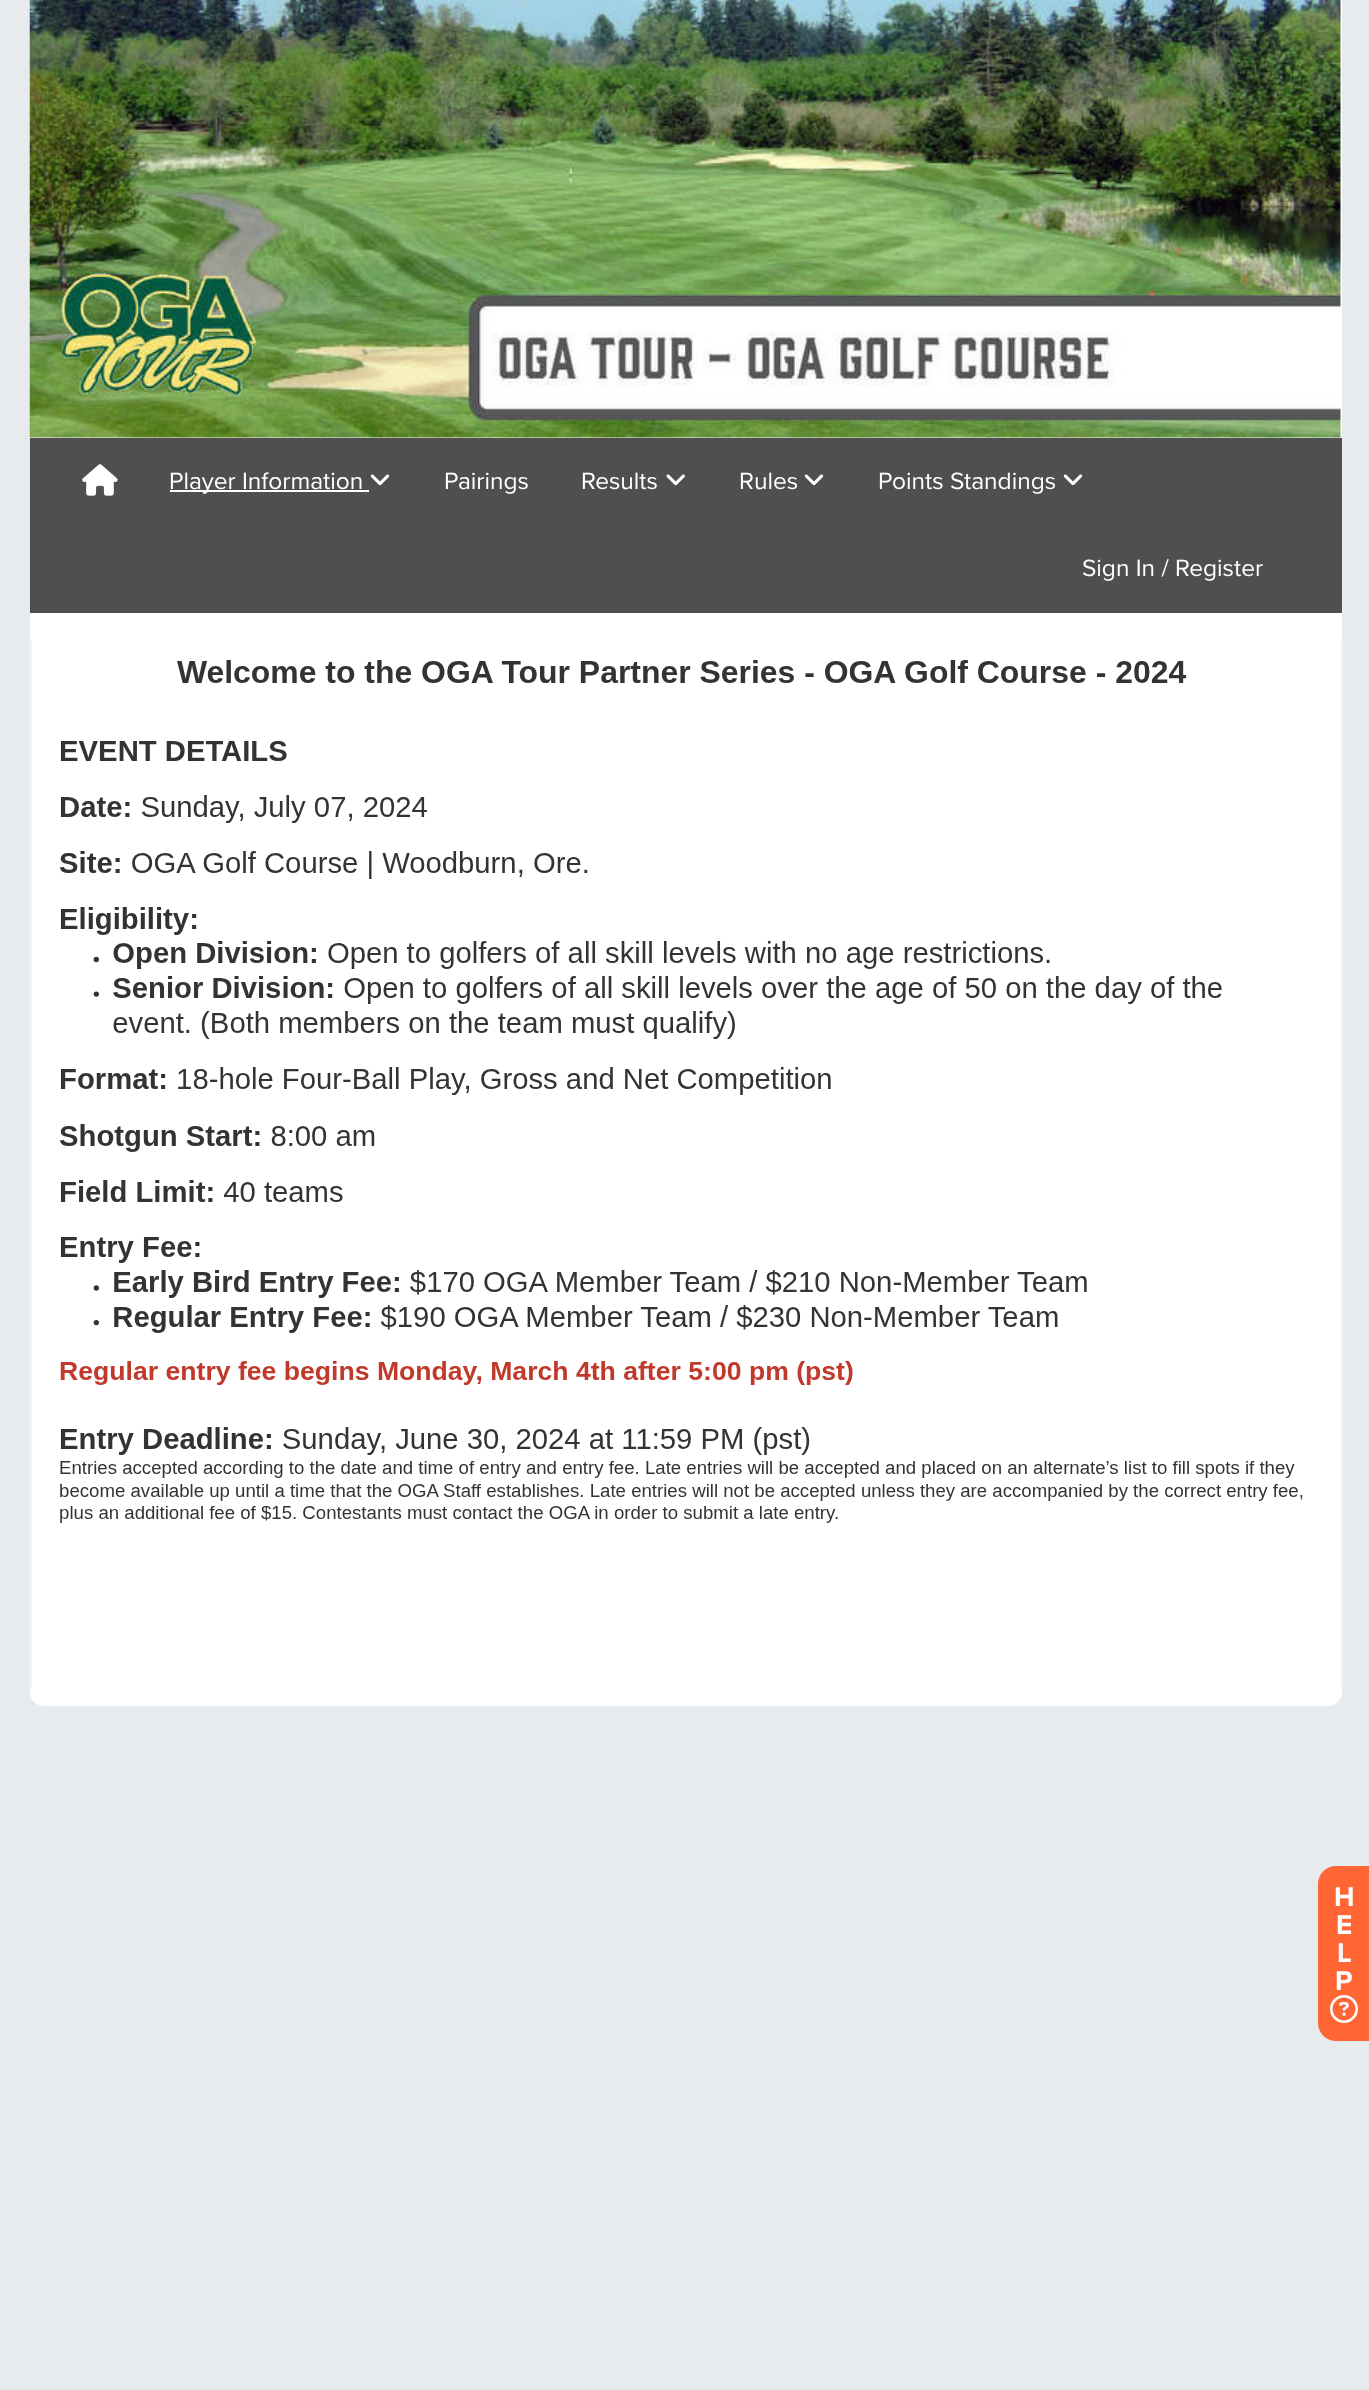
(async () => {
    const canvas = document.querySelector("canvas");
    canvas.width = 1369;
    canvas.height = 2390;
    const context = canvas.getContext("2d");
    context.miterLimit = 4;
    context.fontKerning = "normal";
    function write(s, x, y, font, color) {
        context.font = font;
        context.fillStyle = color;
        context.fillText(s, x, y);
    }
    function block(x, y, w, h, color) {
        context.fillStyle = color;
        context.fillRect(x, y, w, h);
    }
    async function photo(src, x, y, w, h) {
        const img = new Image();
        img.src = src;
        await img.decode();
        context.drawImage(img, x, y, w, h);
    }

    block(0, 0, 1369, 2390, "rgb(231, 235, 238)");
    context.fillStyle = "rgb(255, 255, 255)";
    context.beginPath();
    context.roundRect(30, 0, 1312, 1706, [0, 0, 14, 14]);
    context.fill();
    await photo("media/1.png", 29, 0, 1312, 438);
    block(30, 438, 1312, 175, "rgb(79, 79, 79)");
    await photo("media/2.png", 82, 464, 36, 32);
    block(170, 490, 199, 2, "rgb(255, 255, 255)");
    write("Player Information", 169, 489, "24.5px Proxima Nova", "rgb(255, 255, 255)");
    await photo("media/3.png", 370, 474, 20, 12);
    write("Pairings", 444, 489, "24.5px Proxima Nova", "rgb(255, 255, 255)");
    write("Results", 581, 489, "24.5px Proxima Nova", "rgb(255, 255, 255)");
    await photo("media/4.png", 666, 474, 19, 12);
    write("Rules", 739, 489, "24.5px Proxima Nova", "rgb(255, 255, 255)");
    await photo("media/3.png", 804, 474, 20, 12);
    write("Points Standings", 878, 489, "24.5px Proxima Nova", "rgb(255, 255, 255)");
    await photo("media/3.png", 1063, 474, 20, 12);
    write("Sign In / Register", 1082, 576, "24.5px Proxima Nova", "rgb(255, 255, 255)");
    block(1341, 639, 2, 1050, "rgb(242, 242, 242)");
    block(30, 639, 2, 1050, "rgb(242, 242, 242)");
    await photo("media/5.png", 59, 660, 1244, 863);
    context.fillStyle = "rgb(255, 102, 51)";
    context.beginPath();
    context.moveTo(1336, 1866);
    context.lineTo(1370, 1866);
    context.lineTo(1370, 2041);
    context.lineTo(1336, 2041);
    context.bezierCurveTo(1326, 2041, 1318, 2033, 1318, 2023);
    context.lineTo(1318, 1884);
    context.bezierCurveTo(1318, 1874, 1326, 1866, 1336, 1866);
    context.closePath();
    context.fill();
    write("H", 1334, 1906, "bold 28px Proxima Nova", "rgb(255, 255, 255)");
    write("E", 1336, 1934, "bold 28px Proxima Nova", "rgb(255, 255, 255)");
    write("L", 1337, 1962, "bold 28px Proxima Nova", "rgb(255, 255, 255)");
    write("P", 1335, 1990, "bold 28px Proxima Nova", "rgb(255, 255, 255)");
    await photo("media/6.png", 1330, 1995, 28, 28);
})();
